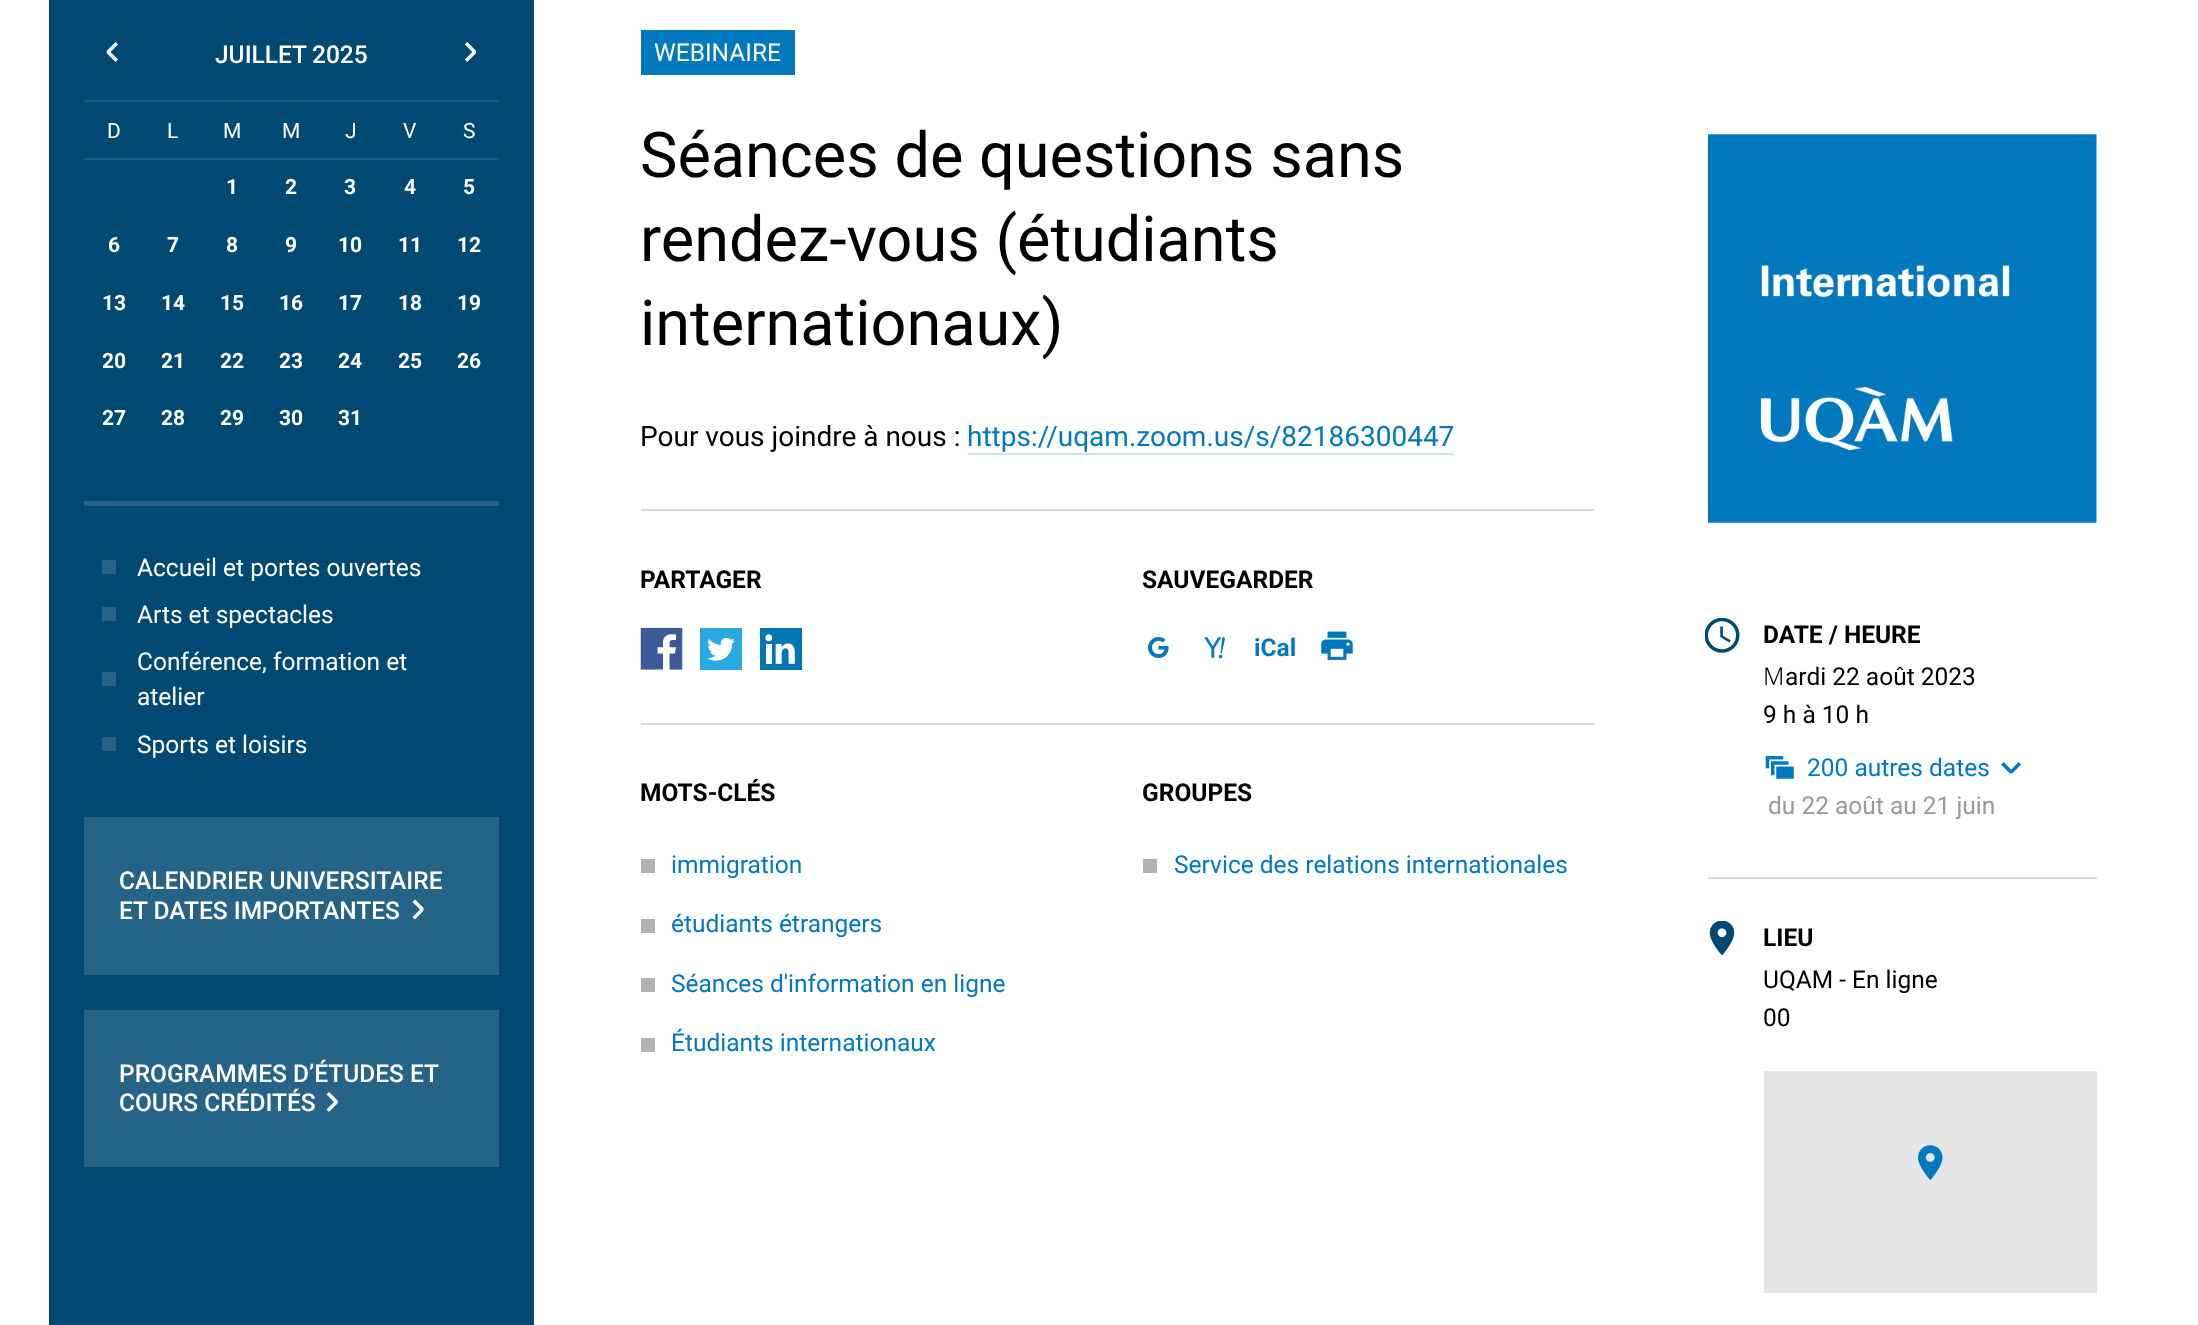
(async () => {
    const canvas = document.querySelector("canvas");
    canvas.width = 2198;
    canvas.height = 1325;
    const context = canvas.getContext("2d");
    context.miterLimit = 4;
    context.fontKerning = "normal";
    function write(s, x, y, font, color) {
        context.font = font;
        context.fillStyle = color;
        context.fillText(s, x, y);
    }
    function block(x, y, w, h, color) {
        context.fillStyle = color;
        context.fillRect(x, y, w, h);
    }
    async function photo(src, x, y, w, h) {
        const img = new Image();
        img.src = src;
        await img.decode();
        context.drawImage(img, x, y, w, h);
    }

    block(0, 0, 2198, 1325, "rgb(255, 255, 255)");
    block(49, 0, 485, 1325, "rgb(0, 73, 114)");
    await photo("media/1.png", 106, 42, 12, 20);
    await photo("media/2.png", 464, 42, 12, 20);
    write("JUILLET", 215, 63, "500 24.5px Roboto", "rgb(255, 255, 255)");
    write("2025", 312, 63, "500 24.5px Roboto", "rgb(255, 255, 255)");
    block(84, 100, 415, 2, "rgb(26, 91, 128)");
    block(84, 158, 415, 2, "rgb(26, 91, 128)");
    write("D", 107, 138, "21px Roboto", "rgb(255, 255, 255)");
    write("L", 167, 138, "21px Roboto", "rgb(255, 255, 255)");
    write("M", 223, 138, "21px Roboto", "rgb(255, 255, 255)");
    write("M", 282, 138, "21px Roboto", "rgb(255, 255, 255)");
    write("J", 345, 138, "21px Roboto", "rgb(255, 255, 255)");
    write("V", 403, 138, "21px Roboto", "rgb(255, 255, 255)");
    write("S", 463, 138, "21px Roboto", "rgb(255, 255, 255)");
    write("1", 226, 194, "bold 21px Roboto", "rgb(255, 255, 255)");
    write("2", 285, 194, "bold 21px Roboto", "rgb(255, 255, 255)");
    write("3", 344, 194, "bold 21px Roboto", "rgb(255, 255, 255)");
    write("4", 404, 194, "bold 21px Roboto", "rgb(255, 255, 255)");
    write("5", 463, 194, "bold 21px Roboto", "rgb(255, 255, 255)");
    write("6", 108, 252, "bold 21px Roboto", "rgb(255, 255, 255)");
    write("7", 167, 252, "bold 21px Roboto", "rgb(255, 255, 255)");
    write("8", 226, 252, "bold 21px Roboto", "rgb(255, 255, 255)");
    write("9", 285, 252, "bold 21px Roboto", "rgb(255, 255, 255)");
    write("10", 338, 252, "bold 21px Roboto", "rgb(255, 255, 255)");
    write("11", 398, 252, "bold 21px Roboto", "rgb(255, 255, 255)");
    write("12", 457, 252, "bold 21px Roboto", "rgb(255, 255, 255)");
    write("13", 102, 310, "bold 21px Roboto", "rgb(255, 255, 255)");
    write("14", 161, 310, "bold 21px Roboto", "rgb(255, 255, 255)");
    write("15", 220, 310, "bold 21px Roboto", "rgb(255, 255, 255)");
    write("16", 279, 310, "bold 21px Roboto", "rgb(255, 255, 255)");
    write("17", 338, 310, "bold 21px Roboto", "rgb(255, 255, 255)");
    write("18", 398, 310, "bold 21px Roboto", "rgb(255, 255, 255)");
    write("19", 457, 310, "bold 21px Roboto", "rgb(255, 255, 255)");
    write("20", 102, 368, "bold 21px Roboto", "rgb(255, 255, 255)");
    write("21", 161, 368, "bold 21px Roboto", "rgb(255, 255, 255)");
    write("22", 220, 368, "bold 21px Roboto", "rgb(255, 255, 255)");
    write("23", 279, 368, "bold 21px Roboto", "rgb(255, 255, 255)");
    write("24", 338, 368, "bold 21px Roboto", "rgb(255, 255, 255)");
    write("25", 398, 368, "bold 21px Roboto", "rgb(255, 255, 255)");
    write("26", 457, 368, "bold 21px Roboto", "rgb(255, 255, 255)");
    write("27", 102, 425, "bold 21px Roboto", "rgb(255, 255, 255)");
    write("28", 161, 425, "bold 21px Roboto", "rgb(255, 255, 255)");
    write("29", 220, 425, "bold 21px Roboto", "rgb(255, 255, 255)");
    write("30", 279, 425, "bold 21px Roboto", "rgb(255, 255, 255)");
    write("31", 338, 425, "bold 21px Roboto", "rgb(255, 255, 255)");
    block(84, 501, 415, 5, "rgb(38, 100, 135)");
    block(102, 560, 14, 14, "rgb(38, 100, 135)");
    write("Accueil et portes ouvertes", 137, 576, "24.5px Roboto", "rgb(255, 255, 255)");
    block(102, 607, 14, 14, "rgb(38, 100, 135)");
    write("Arts et spectacles", 137, 623, "24.5px Roboto", "rgb(255, 255, 255)");
    write("Conférence, formation et", 137, 670, "24.5px Roboto", "rgb(255, 255, 255)");
    block(102, 672, 14, 14, "rgb(38, 100, 135)");
    write("atelier", 137, 705, "24.5px Roboto", "rgb(255, 255, 255)");
    block(102, 737, 14, 14, "rgb(38, 100, 135)");
    write("Sports et loisirs", 137, 753, "24.5px Roboto", "rgb(255, 255, 255)");
    block(84, 817, 415, 158, "rgb(38, 100, 135)");
    write("CALENDRIER UNIVERSITAIRE", 119, 889, "500 24.5px Roboto", "rgb(255, 255, 255)");
    write("ET DATES IMPORTANTES", 119, 919, "500 24.5px Roboto", "rgb(255, 255, 255)");
    context.beginPath();
    context.moveTo(415, 899.5);
    context.lineTo(412.5, 902);
    context.lineTo(420, 909.5);
    context.lineTo(412.5, 917);
    context.lineTo(415, 919.5);
    context.lineTo(423.5, 910.5);
    context.lineTo(423.5, 908);
    context.closePath();
    context.fill("evenodd");
    block(84, 1010, 415, 157, "rgb(38, 100, 135)");
    write("PROGRAMMES D’ÉTUDES ET", 119, 1082, "500 24.5px Roboto", "rgb(255, 255, 255)");
    write("COURS CRÉDITÉS", 119, 1111, "500 24.5px Roboto", "rgb(255, 255, 255)");
    await photo("media/3.png", 326, 1092, 12, 20);
    block(641, 30, 154, 45, "rgb(0, 121, 190)");
    write("WEBINAIRE", 654, 61, "24.5px Roboto", "rgb(255, 255, 255)");
    write("Séances de questions sans", 640, 177, "63px Roboto", "rgb(0, 0, 0)");
    write("rendez-vous (étudiants", 640, 261, "63px Roboto", "rgb(0, 0, 0)");
    write("internationaux)", 640, 345, "63px Roboto", "rgb(0, 0, 0)");
    write("Pour vous joindre à nous :", 640, 446, "28px Roboto", "rgb(0, 0, 0)");
    write("https://uqam.zoom.us/s/82186300447", 967, 446, "28px Roboto", "rgb(0, 121, 190)");
    block(968, 453, 486, 2, "rgb(204, 228, 242)");
    block(641, 509, 953, 2, "rgb(217, 217, 217)");
    write("PARTAGER", 640, 588, "bold 24.5px Roboto", "rgb(0, 0, 0)");
    await photo("media/4.png", 640, 627, 43, 43);
    await photo("media/5.png", 700, 628, 42, 42);
    await photo("media/6.png", 760, 628, 42, 42);
    write("SAUVEGARDER", 1142, 588, "bold 24.5px Roboto", "rgb(0, 0, 0)");
    await photo("media/7.png", 1148, 637, 21, 21);
    await photo("media/8.png", 1204, 637, 21, 22);
    write("iCal", 1254, 656, "bold 24.5px Roboto", "rgb(0, 121, 190)");
    await photo("media/9.png", 1321, 631, 32, 29);
    block(641, 723, 953, 2, "rgb(217, 217, 217)");
    write("MOTS-CLÉS", 640, 801, "bold 24.5px Roboto", "rgb(0, 0, 0)");
    block(641, 859, 14, 14, "rgb(178, 178, 178)");
    write("immigration", 671, 873, "24.5px Roboto", "rgb(0, 121, 190)");
    block(641, 919, 14, 14, "rgb(178, 178, 178)");
    write("étudiants étrangers", 671, 932, "24.5px Roboto", "rgb(0, 121, 190)");
    block(641, 978, 14, 14, "rgb(178, 178, 178)");
    write("Séances d'information en ligne", 671, 992, "24.5px Roboto", "rgb(0, 121, 190)");
    block(641, 1038, 14, 14, "rgb(178, 178, 178)");
    write("Étudiants internationaux", 671, 1051, "24.5px Roboto", "rgb(0, 121, 190)");
    write("GROUPES", 1142, 801, "bold 24.5px Roboto", "rgb(0, 0, 0)");
    block(1143, 859, 14, 14, "rgb(178, 178, 178)");
    write("Service des relations internationales", 1174, 873, "24.5px Roboto", "rgb(0, 121, 190)");
    await photo("media/10.png", 1708, 134, 389, 389);
    await photo("media/11.png", 1705, 618, 35, 35);
    write("DATE / HEURE", 1763, 643, "bold 24.5px Roboto", "rgb(0, 0, 0)");
    write("M", 1763, 685, "300 24.5px Noto Sans", "rgb(0, 0, 0)");
    write("ardi 22 août 2023", 1785, 685, "24.5px Roboto", "rgb(0, 0, 0)");
    write("9 h à 10 h", 1763, 723, "24.5px Roboto", "rgb(0, 0, 0)");
    await photo("media/12.png", 1765, 756, 29, 23);
    write("200 autres dates", 1807, 776, "24.5px Roboto", "rgb(0, 121, 190)");
    await photo("media/13.png", 2001, 762, 20, 12);
    write("du 22 août au 21 juin", 1768, 814, "24.5px Roboto", "rgb(153, 153, 153)");
    block(1708, 877, 389, 2, "rgb(217, 217, 217)");
    await photo("media/14.png", 1709, 921, 26, 35);
    write("LIEU", 1763, 946, "bold 24.5px Roboto", "rgb(0, 0, 0)");
    write("UQAM - En ligne", 1763, 988, "24.5px Roboto", "rgb(0, 0, 0)");
    write("00", 1763, 1026, "24.5px Roboto", "rgb(0, 0, 0)");
    block(1764, 1071, 333, 222, "rgb(230, 230, 230)");
    await photo("media/15.png", 1918, 1145, 25, 35);
})();
